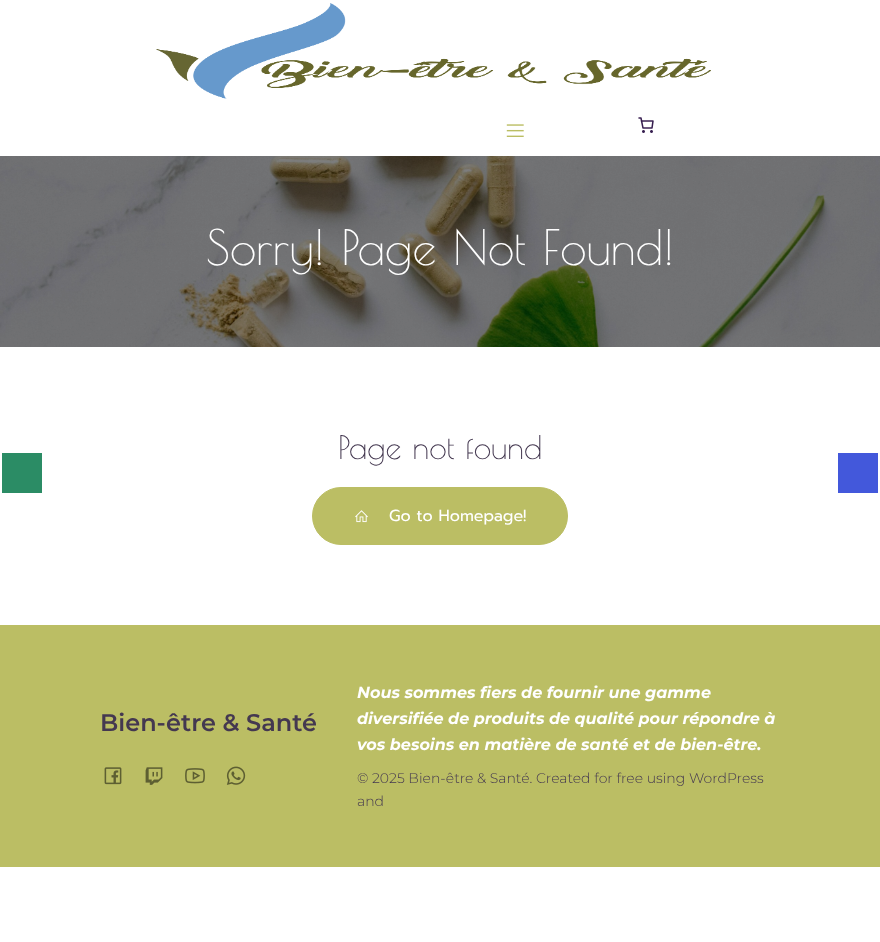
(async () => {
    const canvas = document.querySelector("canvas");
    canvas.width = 880;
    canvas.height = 942;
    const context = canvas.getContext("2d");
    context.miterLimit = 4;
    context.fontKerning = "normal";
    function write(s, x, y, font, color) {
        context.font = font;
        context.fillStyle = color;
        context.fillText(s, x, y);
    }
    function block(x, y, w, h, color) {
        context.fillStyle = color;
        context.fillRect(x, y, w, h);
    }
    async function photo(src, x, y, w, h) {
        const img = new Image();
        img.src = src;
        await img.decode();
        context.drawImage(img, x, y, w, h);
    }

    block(0, 0, 880, 942, "rgb(255, 255, 255)");
    block(2, 453, 40, 40, "rgb(43, 140, 101)");
    await photo("media/1.png", 156, 3, 555, 96);
    await photo("media/2.png", 506, 124, 18, 13);
    await photo("media/3.png", 638, 117, 16, 16);
    await photo("media/4.png", 0, 156, 880, 191);
    write("Sorry! Page Not Found!", 206, 265, "48px Poiret One", "rgb(255, 255, 255)");
    write("Page not found", 338, 459, "32px Poiret One", "rgb(68, 56, 80)");
    context.fillStyle = "rgb(187, 190, 100)";
    context.beginPath();
    context.roundRect(312.5, 487.5, 255, 57, 28.5);
    context.fill();
    context.strokeStyle = "rgb(187, 190, 100)";
    context.stroke();
    await photo("media/5.png", 355, 510, 13, 13);
    write("Go to Homepage!", 389, 521, "16px Prompt", "rgb(255, 255, 255)");
    block(0, 625, 880, 242, "rgb(187, 190, 100)");
    write("Bien-être & Santé", 100, 731, "600 24px Montserrat", "rgb(68, 56, 80)");
    await photo("media/6.png", 104, 767, 18, 18);
    await photo("media/7.png", 145, 767, 18, 18);
    await photo("media/8.png", 185, 768, 20, 16);
    await photo("media/9.png", 226, 766, 20, 19);
    write("Nous sommes fiers de fournir une gamme", 357, 698, "italic bold 16px Montserrat", "rgb(255, 255, 255)");
    write("diversifiée de produits de qualité pour répondre à", 357, 724, "italic bold 16px Montserrat", "rgb(255, 255, 255)");
    write("vos besoins en matière de santé et de bien-être.", 357, 750, "italic bold 16px Montserrat", "rgb(255, 255, 255)");
    write("© 2025 Bien-être & Santé. Created for free using WordPress", 357, 783, "300 14px Montserrat", "rgb(68, 56, 80)");
    write("and", 357, 806, "300 14px Montserrat", "rgb(68, 56, 80)");
    block(838, 453, 40, 40, "rgb(67, 88, 219)");
})();
